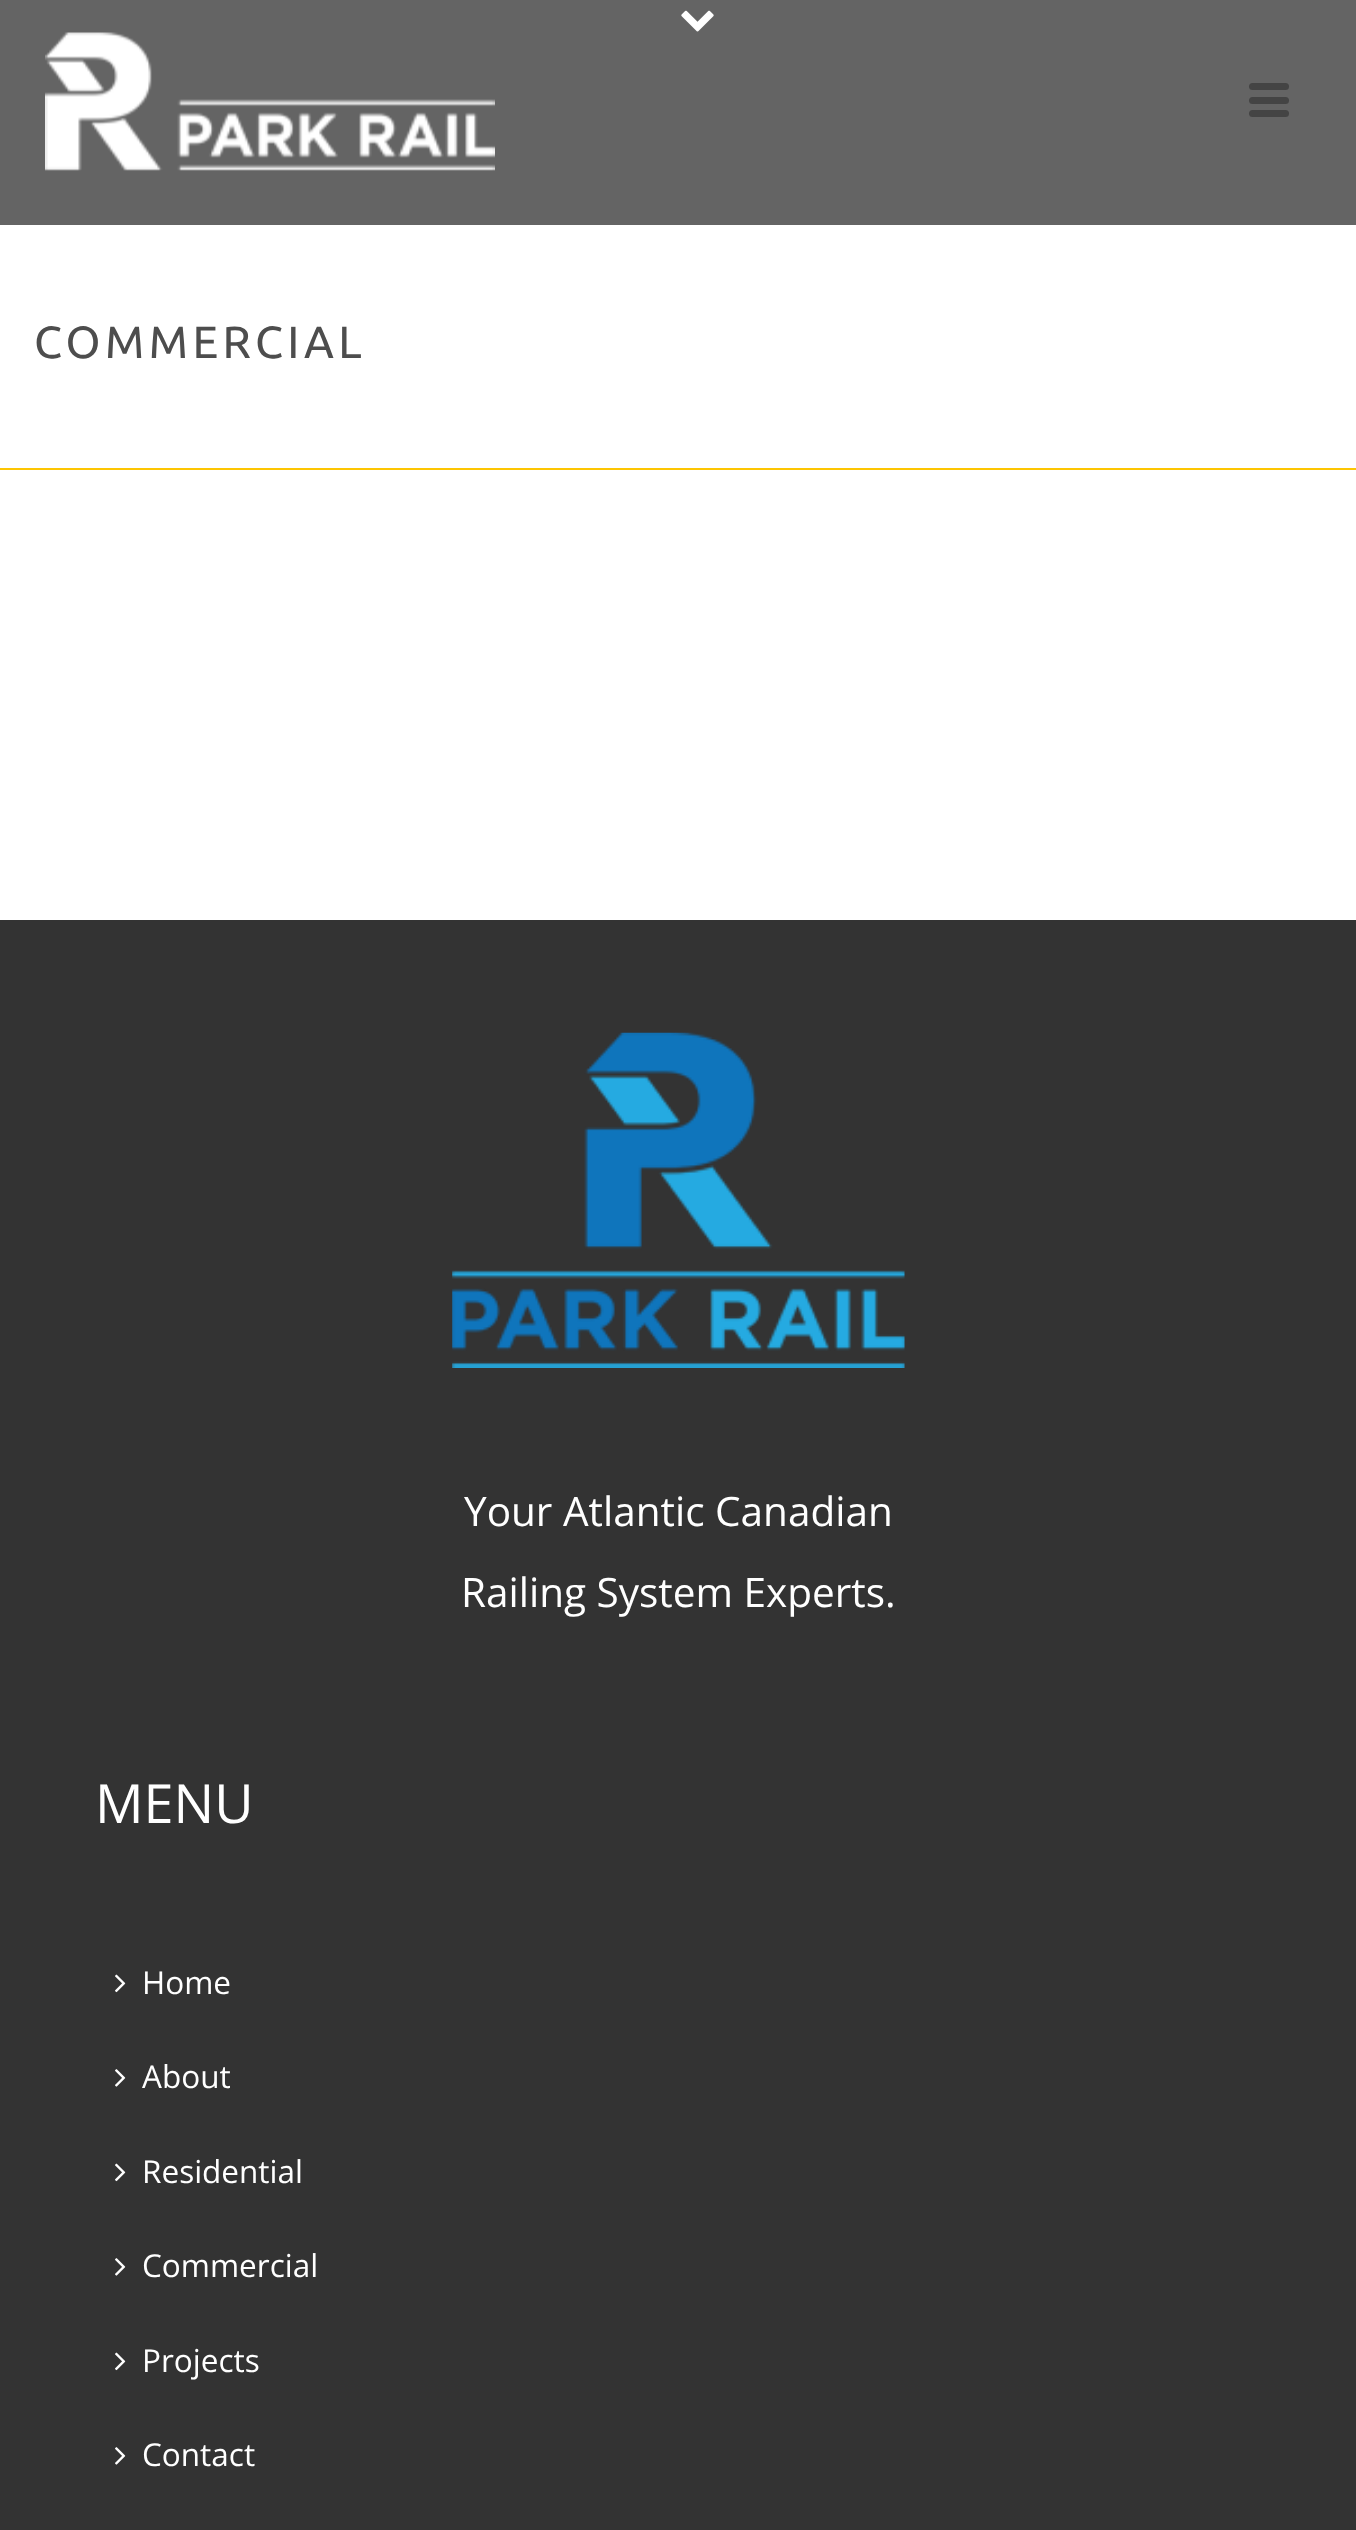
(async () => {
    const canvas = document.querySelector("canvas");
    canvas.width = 1356;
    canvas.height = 2530;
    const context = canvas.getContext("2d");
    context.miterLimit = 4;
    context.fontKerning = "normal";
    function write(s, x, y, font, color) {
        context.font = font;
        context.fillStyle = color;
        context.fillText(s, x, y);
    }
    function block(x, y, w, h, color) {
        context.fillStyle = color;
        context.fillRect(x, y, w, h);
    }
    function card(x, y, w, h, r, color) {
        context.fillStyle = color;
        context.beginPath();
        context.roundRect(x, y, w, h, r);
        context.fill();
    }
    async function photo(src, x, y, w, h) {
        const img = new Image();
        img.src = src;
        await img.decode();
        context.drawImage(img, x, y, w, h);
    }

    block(0, 0, 1356, 2530, "rgb(255, 255, 255)");
    block(0, 468, 1356, 2, "rgb(253, 197, 2)");
    block(0, 0, 1356, 225, "rgb(100, 100, 100)");
    await photo("media/1.png", 681, 10, 33, 22);
    await photo("media/2.png", 45, 32, 450, 139);
    card(1249, 83, 40, 7, 3.5, "rgb(68, 68, 68)");
    card(1249, 97, 40, 7, 3.5, "rgb(68, 68, 68)");
    card(1249, 110, 40, 7, 3.5, "rgb(68, 68, 68)");
    context.letterSpacing = "4.5px";
    write("COMMERCIAL", 34, 358, "45px Ubuntu", "rgb(77, 77, 77)");
    block(0, 920, 1356, 1610, "rgb(51, 51, 51)");
    await photo("media/3.png", 452, 1032, 453, 336);
    context.letterSpacing = "0px";
    write("Your Atlantic Canadian", 464, 1526, "40.5px Open Sans", "rgb(255, 255, 255)");
    write("Railing System Experts.", 461, 1607, "40.5px Open Sans", "rgb(255, 255, 255)");
    write("MENU", 95, 1823, "54px Open Sans", "rgb(255, 255, 255)");
    await photo("media/4.png", 115, 1974, 11, 19);
    write("Home", 142, 1994, "31.5px Open Sans", "rgb(255, 255, 255)");
    await photo("media/5.png", 115, 2069, 11, 18);
    write("About", 142, 2088, "31.5px Open Sans", "rgb(255, 255, 255)");
    await photo("media/4.png", 115, 2163, 11, 19);
    write("Residential", 142, 2183, "31.5px Open Sans", "rgb(255, 255, 255)");
    await photo("media/5.png", 115, 2258, 11, 18);
    write("Commercial", 142, 2277, "31.5px Open Sans", "rgb(255, 255, 255)");
    await photo("media/4.png", 115, 2352, 11, 19);
    write("Projects", 142, 2372, "31.5px Open Sans", "rgb(255, 255, 255)");
    await photo("media/5.png", 115, 2447, 11, 18);
    write("Contact", 142, 2466, "31.5px Open Sans", "rgb(255, 255, 255)");
})();
